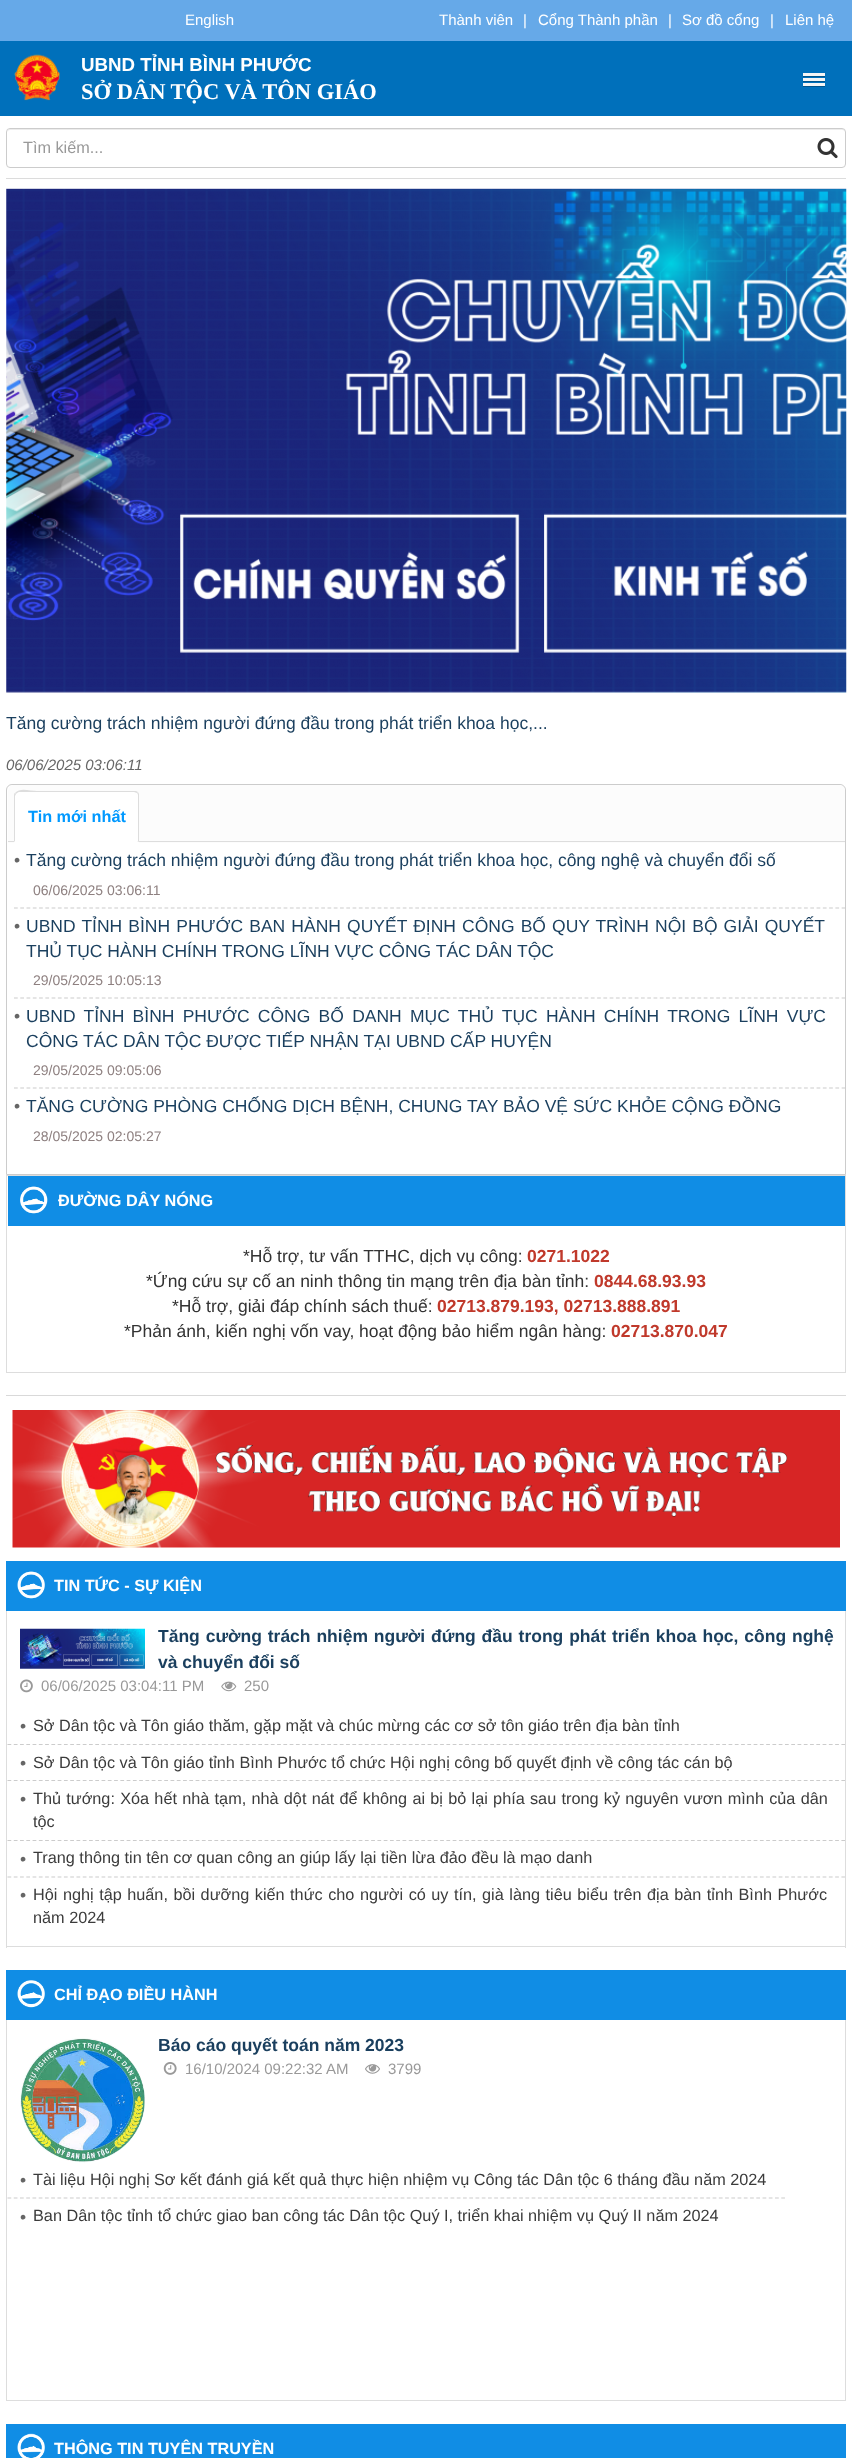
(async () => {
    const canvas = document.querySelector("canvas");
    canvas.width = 852;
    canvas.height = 2458;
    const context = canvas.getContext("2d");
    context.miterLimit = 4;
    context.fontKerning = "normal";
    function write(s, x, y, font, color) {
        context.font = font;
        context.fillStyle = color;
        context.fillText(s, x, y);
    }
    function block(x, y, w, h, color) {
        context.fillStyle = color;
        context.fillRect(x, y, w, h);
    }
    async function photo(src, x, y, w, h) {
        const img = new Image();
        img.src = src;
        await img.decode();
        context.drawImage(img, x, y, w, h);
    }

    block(0, 0, 852, 2458, "rgb(102, 169, 232)");
    write("English", 185, 25, "15px Liberation Sans", "rgb(255, 255, 255)");
    write("Thành viên", 439, 25, "15px Liberation Sans", "rgb(255, 255, 255)");
    write("|", 523, 25, "15px Liberation Sans", "rgb(255, 255, 255)");
    write("Cổng Thành phần", 538, 25, "15px Liberation Sans", "rgb(255, 255, 255)");
    write("|", 668, 25, "15px Liberation Sans", "rgb(255, 255, 255)");
    write("Sơ đồ cổng", 682, 25, "15px Liberation Sans", "rgb(255, 255, 255)");
    write("|", 770, 25, "15px Liberation Sans", "rgb(255, 255, 255)");
    write("Liên hệ", 785, 25, "15px Liberation Sans", "rgb(255, 255, 255)");
    block(0, 41, 852, 75, "rgb(0, 112, 187)");
    await photo("media/1.png", 14, 54, 46, 47);
    write("UBND TỈNH BÌNH PHƯỚC", 81, 71, "bold 18.75px Liberation Sans", "rgb(255, 255, 255)");
    write("SỞ DÂN TỘC VÀ TÔN GIÁO", 81, 99, "bold 22.5px Liberation Serif", "rgb(255, 255, 255)");
    block(803, 76, 22, 1, "rgb(0, 84, 140)");
    block(803, 73, 22, 3, "rgb(245, 245, 245)");
    block(803, 81, 22, 1, "rgb(0, 84, 140)");
    block(803, 78, 22, 3, "rgb(245, 245, 245)");
    block(803, 86, 22, 1, "rgb(0, 84, 140)");
    block(803, 83, 22, 3, "rgb(245, 245, 245)");
    block(0, 116, 852, 2342, "rgb(255, 255, 255)");
    block(6, 178, 840, 1, "rgb(220, 220, 220)");
    context.fillStyle = "rgb(236, 236, 236)";
    context.beginPath();
    context.moveTo(10, 130);
    context.lineTo(842, 130);
    context.bezierCurveTo(844, 130, 845, 131, 845, 132);
    context.bezierCurveTo(845, 130, 844, 129, 842, 129);
    context.lineTo(10, 129);
    context.bezierCurveTo(9, 129, 8, 130, 8, 132);
    context.bezierCurveTo(8, 131, 9, 130, 10, 130);
    context.closePath();
    context.fill();
    context.beginPath();
    context.roundRect(6.5, 128.5, 839, 39, 3.5);
    context.strokeStyle = "rgb(204, 204, 204)";
    context.stroke();
    write("Tìm kiếm...", 23, 153, "16.25px Liberation Sans", "rgb(153, 153, 153)");
    await photo("media/2.png", 817, 138, 21, 21);
    block(6, 1395, 840, 1, "rgb(217, 217, 217)");
    await photo("media/3.png", 6, 188, 841, 505);
    write("Tăng cường trách nhiệm người đứng đầu trong phát triển khoa học,...", 6, 729, "17.5px Liberation Sans", "rgb(26, 63, 94)");
    write("06/06/2025 03:06:11", 6, 770, "italic 15px Liberation Sans", "rgb(102, 102, 102)");
    context.beginPath();
    context.roundRect(6.5, 784.5, 839, 390, [5.5, 5.5, 0, 0]);
    context.stroke();
    context.fillStyle = "rgb(252, 252, 252)";
    context.beginPath();
    context.roundRect(8, 785, 837, 58, [6, 6, 0, 0]);
    context.fill();
    block(8, 841, 837, 1, "rgb(221, 221, 221)");
    context.fillStyle = "rgb(255, 255, 255)";
    context.beginPath();
    context.roundRect(14, 791, 125, 52, [5, 5, 0, 0]);
    context.fill();
    context.fillStyle = "rgb(221, 221, 221)";
    context.beginPath();
    context.moveTo(19, 792);
    context.bezierCurveTo(18, 792, 17, 793, 16, 794);
    context.lineTo(15, 793);
    context.bezierCurveTo(20, 787, 30, 791, 37, 791);
    context.lineTo(136, 791);
    context.lineTo(138, 792);
    context.lineTo(137, 793);
    context.lineTo(134, 792);
    context.closePath();
    context.fill();
    context.beginPath();
    context.moveTo(139, 842);
    context.lineTo(137, 841);
    context.lineTo(138, 841);
    context.lineTo(138, 796);
    context.bezierCurveTo(138, 795, 138, 794, 137, 793);
    context.lineTo(138, 792);
    context.lineTo(139, 794);
    context.closePath();
    context.fill();
    context.beginPath();
    context.moveTo(14, 842);
    context.lineTo(14, 796);
    context.bezierCurveTo(14, 795, 14, 793, 15, 793);
    context.lineTo(16, 794);
    context.lineTo(15, 796);
    context.lineTo(15, 841);
    context.closePath();
    context.fill();
    write("Tin mới nhất", 28, 822, "bold 16.25px Liberation Sans", "rgb(0, 153, 255)");
    context.beginPath();
    context.moveTo(14, 908);
    context.lineTo(845, 908);
    context.lineWidth = 1.2;
    context.setLineDash([3.75, 2.52]);
    context.stroke();
    write("•", 14, 866, "17.5px Liberation Sans", "rgb(102, 102, 102)");
    write("Tăng cường trách nhiệm người đứng đầu trong phát triển khoa học, công nghệ và chuyển đổi số", 26, 866, "17.5px Liberation Sans", "rgb(26, 63, 94)");
    write("06/06/2025 03:06:11", 33, 895, "14px Liberation Sans", "rgb(142, 128, 128)");
    context.beginPath();
    context.moveTo(14, 998);
    context.lineTo(845, 998);
    context.stroke();
    write("•", 14, 932, "17.5px Liberation Sans", "rgb(102, 102, 102)");
    context.wordSpacing = "1.25px";
    write("UBND TỈNH BÌNH PHƯỚC BAN HÀNH QUYẾT ĐỊNH CÔNG BỐ QUY TRÌNH NỘI BỘ GIẢI QUYẾT", 26, 932, "17.5px Liberation Sans", "rgb(26, 63, 94)");
    context.wordSpacing = "0px";
    write("THỦ TỤC HÀNH CHÍNH TRONG LĨNH VỰC CÔNG TÁC DÂN TỘC", 26, 957, "17.5px Liberation Sans", "rgb(26, 63, 94)");
    write("29/05/2025 10:05:13", 33, 985, "14px Liberation Sans", "rgb(142, 128, 128)");
    context.beginPath();
    context.moveTo(14, 1088);
    context.lineTo(845, 1088);
    context.stroke();
    write("•", 14, 1022, "17.5px Liberation Sans", "rgb(102, 102, 102)");
    context.wordSpacing = "3.4px";
    write("UBND TỈNH BÌNH PHƯỚC CÔNG BỐ DANH MỤC THỦ TỤC HÀNH CHÍNH TRONG LĨNH VỰC", 26, 1022, "17.5px Liberation Sans", "rgb(26, 63, 94)");
    context.wordSpacing = "0px";
    write("CÔNG TÁC DÂN TỘC ĐƯỢC TIẾP NHẬN TẠI UBND CẤP HUYỆN", 26, 1047, "17.5px Liberation Sans", "rgb(26, 63, 94)");
    write("29/05/2025 09:05:06", 33, 1075, "14px Liberation Sans", "rgb(142, 128, 128)");
    write("•", 14, 1112, "17.5px Liberation Sans", "rgb(102, 102, 102)");
    write("TĂNG CƯỜNG PHÒNG CHỐNG DỊCH BỆNH, CHUNG TAY BẢO VỆ SỨC KHỎE CỘNG ĐỒNG", 26, 1112, "17.5px Liberation Sans", "rgb(26, 63, 94)");
    write("28/05/2025 02:05:27", 33, 1141, "14px Liberation Sans", "rgb(142, 128, 128)");
    context.strokeStyle = "rgb(221, 221, 221)";
    context.lineWidth = 1;
    context.setLineDash([]);
    context.strokeRect(6.5, 1175.5, 839, 197);
    block(8, 1176, 837, 50, "rgb(16, 141, 229)");
    await photo("media/4.png", 20, 1186, 28, 28);
    write("ĐƯỜNG DÂY NÓNG", 58, 1206, "bold 16.25px Liberation Sans", "rgb(255, 255, 255)");
    write("*Hỗ trợ, tư vấn TTHC, dịch vụ công:", 243, 1262, "17.5px Liberation Sans", "rgb(51, 51, 51)");
    write("0271.1022", 527, 1262, "bold 17.5px Liberation Sans", "rgb(192, 57, 43)");
    write("*Ứng cứu sự cố an ninh thông tin mạng trên địa bàn tỉnh:", 146, 1287, "17.5px Liberation Sans", "rgb(51, 51, 51)");
    write("0844.68.93.93", 594, 1287, "bold 17.5px Liberation Sans", "rgb(192, 57, 43)");
    write("*Hỗ trợ, giải đáp chính sách thuế:", 172, 1312, "17.5px Liberation Sans", "rgb(51, 51, 51)");
    write("02713.879.193, 02713.888.891", 437, 1312, "bold 17.5px Liberation Sans", "rgb(192, 57, 43)");
    write("*Phản ánh, kiến nghị vốn vay, hoạt động bảo hiểm ngân hàng:", 124, 1337, "17.5px Liberation Sans", "rgb(51, 51, 51)");
    write("02713.870.047", 611, 1337, "bold 17.5px Liberation Sans", "rgb(192, 57, 43)");
    await photo("media/5.png", 12, 1410, 828, 138);
    block(6, 1561, 840, 50, "rgb(16, 141, 229)");
    await photo("media/6.png", 17, 1571, 28, 28);
    write("TIN TỨC - SỰ KIỆN", 54, 1591, "bold 16.25px Liberation Sans", "rgb(255, 255, 255)");
    block(845, 1611, 1, 337, "rgb(221, 221, 221)");
    block(6, 1946, 840, 1, "rgb(221, 221, 221)");
    block(6, 1611, 1, 337, "rgb(221, 221, 221)");
    await photo("media/7.png", 20, 1628, 125, 41);
    context.wordSpacing = "1px";
    write("Tăng cường trách nhiệm người đứng đầu trong phát triển khoa học, công nghệ", 158, 1642, "bold 17.5px Liberation Sans", "rgb(26, 63, 94)");
    context.wordSpacing = "0px";
    write("và chuyển đổi số", 158, 1668, "bold 17.5px Liberation Sans", "rgb(26, 63, 94)");
    await photo("media/8.png", 20, 1679, 13, 14);
    write("06/06/2025 03:04:11 PM", 41, 1691, "15px Liberation Sans", "rgb(153, 153, 153)");
    await photo("media/9.png", 221, 1681, 16, 11);
    write("250", 244, 1691, "15px Liberation Sans", "rgb(153, 153, 153)");
    context.beginPath();
    context.moveTo(7.5, 1744.5);
    context.lineTo(845, 1744.5);
    context.strokeStyle = "rgb(204, 204, 204)";
    context.lineWidth = 1.2;
    context.setLineDash([3.75, 2.52]);
    context.stroke();
    write("•", 20, 1732, "17.5px Liberation Sans", "rgb(102, 102, 102)");
    write("Sở Dân tộc và Tôn giáo thăm, gặp mặt và chúc mừng các cơ sở tôn giáo trên địa bàn tỉnh", 33, 1731, "16.25px Liberation Sans", "rgb(59, 59, 59)");
    context.beginPath();
    context.moveTo(7.5, 1780.5);
    context.lineTo(845, 1780.5);
    context.stroke();
    write("•", 20, 1769, "17.5px Liberation Sans", "rgb(102, 102, 102)");
    write("Sở Dân tộc và Tôn giáo tỉnh Bình Phước tổ chức Hội nghị công bố quyết định về công tác cán bộ", 33, 1768, "16.25px Liberation Sans", "rgb(59, 59, 59)");
    context.beginPath();
    context.moveTo(7.5, 1840.5);
    context.lineTo(845, 1840.5);
    context.stroke();
    write("•", 20, 1805, "17.5px Liberation Sans", "rgb(102, 102, 102)");
    context.wordSpacing = "0.75px";
    write("Thủ tướng: Xóa hết nhà tạm, nhà dột nát để không ai bị bỏ lại phía sau trong kỷ nguyên vươn mình của dân", 33, 1804, "16.25px Liberation Sans", "rgb(59, 59, 59)");
    context.wordSpacing = "0px";
    write("tộc", 33, 1827, "16.25px Liberation Sans", "rgb(59, 59, 59)");
    context.beginPath();
    context.moveTo(7.5, 1877);
    context.lineTo(845, 1877);
    context.stroke();
    write("•", 20, 1865, "17.5px Liberation Sans", "rgb(102, 102, 102)");
    write("Trang thông tin tên cơ quan công an giúp lấy lại tiền lừa đảo đều là mạo danh", 33, 1863, "16.25px Liberation Sans", "rgb(59, 59, 59)");
    write("•", 20, 1901, "17.5px Liberation Sans", "rgb(102, 102, 102)");
    context.wordSpacing = "1px";
    write("Hội nghị tập huấn, bồi dưỡng kiến thức cho người có uy tín, già làng tiêu biểu trên địa bàn tỉnh Bình Phước", 33, 1900, "16.25px Liberation Sans", "rgb(59, 59, 59)");
    context.wordSpacing = "0px";
    write("năm 2024", 33, 1923, "16.25px Liberation Sans", "rgb(59, 59, 59)");
    block(6, 1970, 840, 50, "rgb(16, 141, 229)");
    await photo("media/10.png", 17, 1980, 28, 28);
    write("CHỈ ĐẠO ĐIỀU HÀNH", 54, 2000, "bold 16.25px Liberation Sans", "rgb(255, 255, 255)");
    block(845, 2020, 1, 381, "rgb(221, 221, 221)");
    block(6, 2400, 840, 1, "rgb(221, 221, 221)");
    block(6, 2020, 1, 381, "rgb(221, 221, 221)");
    await photo("media/11.png", 20, 2038, 125, 125);
    write("Báo cáo quyết toán năm 2023", 158, 2051, "bold 17.5px Liberation Sans", "rgb(26, 63, 94)");
    await photo("media/12.png", 163, 2062, 14, 13);
    write("16/10/2024 09:22:32 AM", 185, 2074, "15px Liberation Sans", "rgb(153, 153, 153)");
    await photo("media/13.png", 365, 2064, 15, 10);
    write("3799", 388, 2074, "15px Liberation Sans", "rgb(153, 153, 153)");
    context.beginPath();
    context.moveTo(7.5, 2198);
    context.lineTo(785, 2198);
    context.setLineDash([3.75, 2.49]);
    context.stroke();
    write("•", 20, 2186, "17.5px Liberation Sans", "rgb(102, 102, 102)");
    write("Tài liệu Hội nghị Sơ kết đánh giá kết quả thực hiện nhiệm vụ Công tác Dân tộc 6 tháng đầu năm 2024", 33, 2185, "16.25px Liberation Sans", "rgb(59, 59, 59)");
    write("•", 20, 2223, "17.5px Liberation Sans", "rgb(102, 102, 102)");
    write("Ban Dân tộc tỉnh tổ chức giao ban công tác Dân tộc Quý I, triển khai nhiệm vụ Quý II năm 2024", 33, 2221, "16.25px Liberation Sans", "rgb(59, 59, 59)");
    block(6, 2424, 840, 34, "rgb(16, 141, 229)");
    await photo("media/14.png", 17, 2433, 28, 25);
    write("THÔNG TIN TUYÊN TRUYỀN", 54, 2454, "bold 16.25px Liberation Sans", "rgb(255, 255, 255)");
})();
